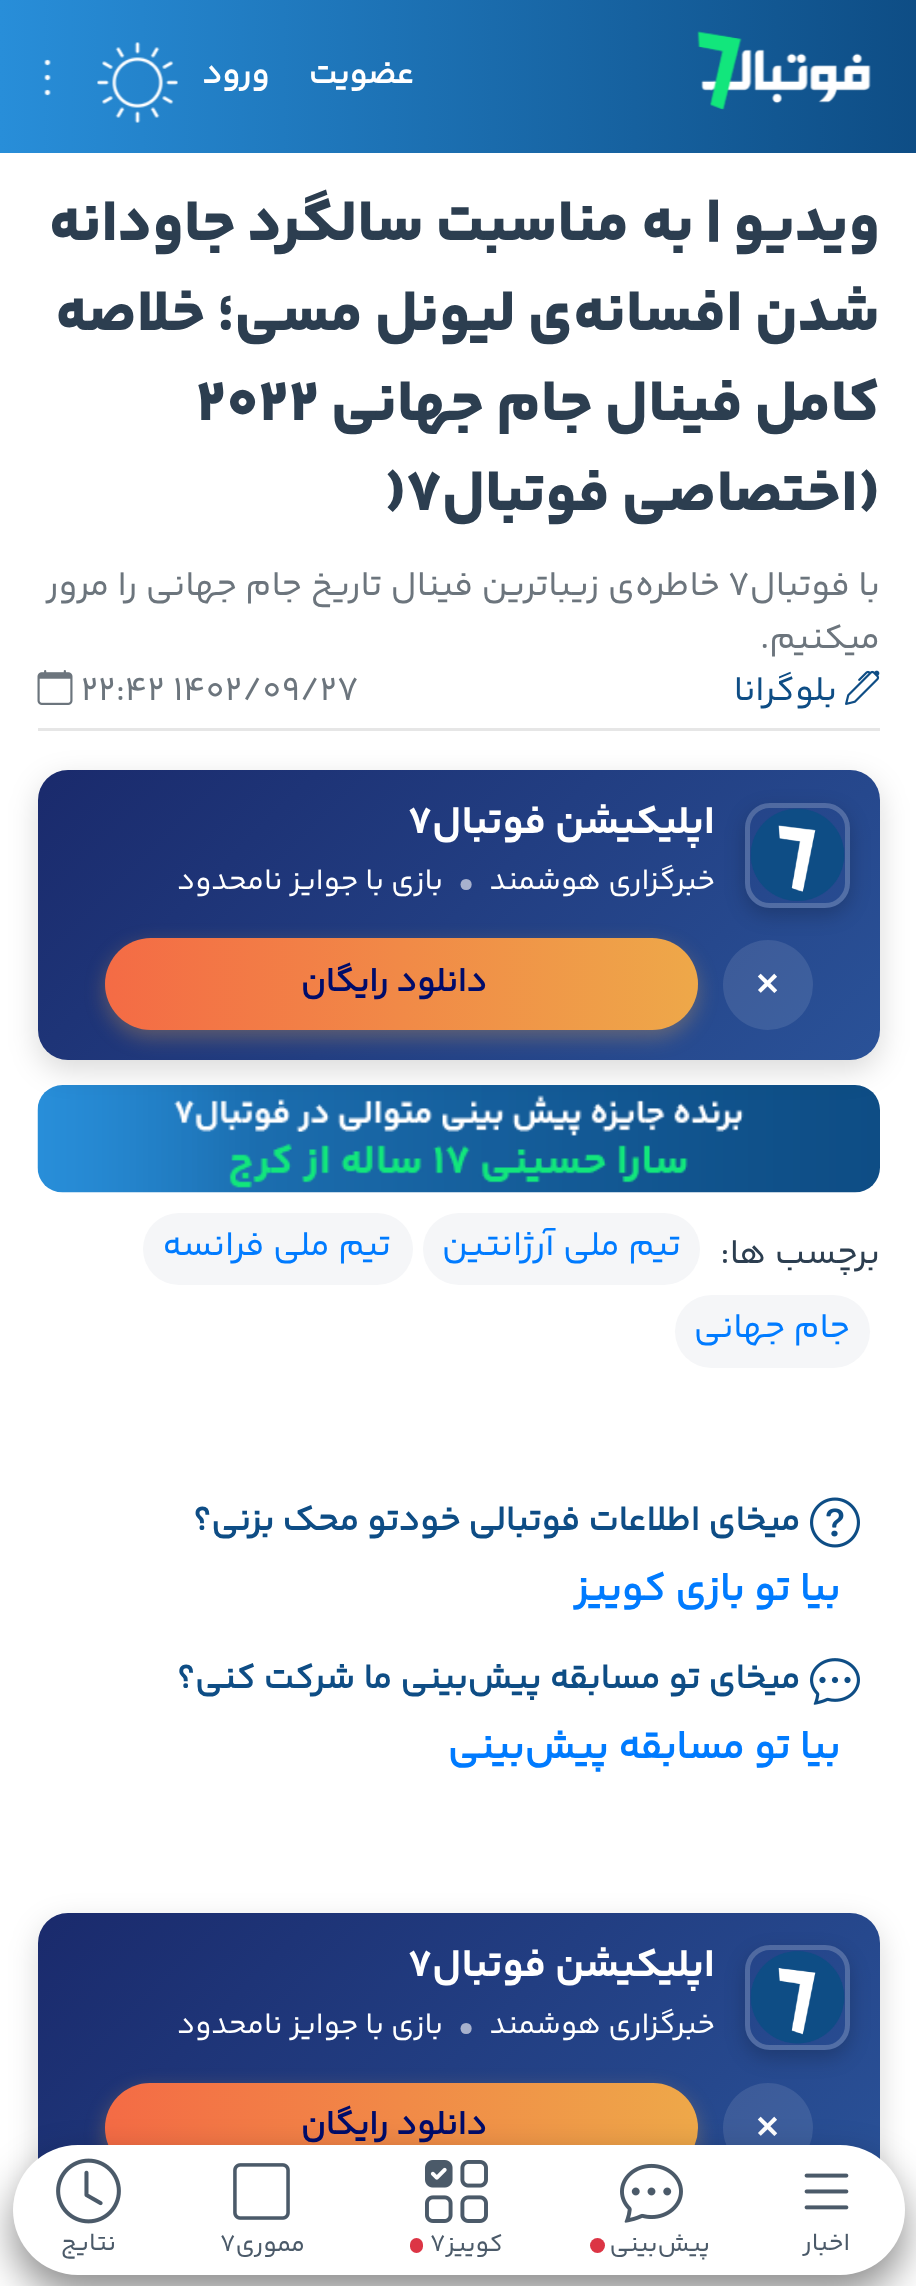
(async () => {
    const canvas = document.querySelector("canvas");
    canvas.width = 916;
    canvas.height = 2286;
    const context = canvas.getContext("2d");
    context.miterLimit = 4;
    context.fontKerning = "normal";
    function write(s, x, y, font, color) {
        context.font = font;
        context.fillStyle = color;
        context.fillText(s, x, y);
    }
    function block(x, y, w, h, color) {
        context.fillStyle = color;
        context.fillRect(x, y, w, h);
    }
    function card(x, y, w, h, r, color) {
        context.fillStyle = color;
        context.beginPath();
        context.roundRect(x, y, w, h, r);
        context.fill();
    }
    async function photo(src, x, y, w, h) {
        const img = new Image();
        img.src = src;
        await img.decode();
        context.drawImage(img, x, y, w, h);
    }
    let gradient;

    block(0, 0, 916, 2286, "rgb(255, 255, 255)");
    gradient = context.createLinearGradient(0, 76, 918, 76);
    gradient.addColorStop(0, "rgb(40, 142, 217)");
    gradient.addColorStop(1, "rgb(14, 77, 133)");
    context.fillStyle = gradient;
    context.fillRect(0, 0, 916, 153);
    await photo("media/1.png", 697, 31, 174, 79);
    context.direction = "rtl";
    write("عضویت", 414, 83, "bold 33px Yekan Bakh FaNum", "rgb(255, 255, 255)");
    write("ورود", 269, 83, "bold 33px Yekan Bakh FaNum", "rgb(255, 255, 255)");
    await photo("media/2.png", 97, 42, 81, 81);
    await photo("media/3.png", 44, 59, 7, 37);
    write("ویدیو | به مناسبت سالگرد جاودانه", 880, 240, "800 60px Yekan Bakh FaNum", "rgb(44, 62, 80)");
    write("شدن افسانه‌ی لیونل مسی؛ خلاصه", 880, 330, "800 60px Yekan Bakh FaNum", "rgb(44, 62, 80)");
    write("کامل فینال جام جهانی", 880, 420, "800 60px Yekan Bakh FaNum", "rgb(44, 62, 80)");
    context.direction = "ltr";
    write("2022", 196, 420, "800 60px Yekan Bakh FaNum", "rgb(44, 62, 80)");
    context.direction = "rtl";
    write("(اختصاصی فوتبال", 880, 510, "800 60px Yekan Bakh FaNum", "rgb(44, 62, 80)");
    context.direction = "ltr";
    write(")7", 384, 510, "800 60px Yekan Bakh FaNum", "rgb(44, 62, 80)");
    context.direction = "rtl";
    write("با فوتبال", 880, 595, "35px Yekan Bakh FaNum", "rgb(108, 117, 125)");
    context.direction = "ltr";
    write("7", 728, 595, "35px Yekan Bakh FaNum", "rgb(108, 117, 125)");
    context.direction = "rtl";
    write("خاطره‌ی زیباترین فینال تاریخ جام جهانی را مرور", 720, 595, "35px Yekan Bakh FaNum", "rgb(108, 117, 125)");
    write("میکنیم.", 880, 648, "35px Yekan Bakh FaNum", "rgb(108, 117, 125)");
    await photo("media/4.png", 845, 670, 35, 35);
    write("بلوگرانا", 837, 700, "35px Yekan Bakh FaNum", "rgb(14, 77, 133)");
    context.direction = "ltr";
    write("22:42 1402/09/27", 81, 700, "35px Yekan Bakh FaNum", "rgb(108, 117, 125)");
    await photo("media/5.png", 37, 670, 36, 35);
    block(38, 728, 842, 3, "rgb(230, 230, 230)");
    await photo("media/7.png", 37, 1085, 843, 108);
    context.fillStyle = "rgba(0, 0, 0, 0.15)";
    context.filter = "blur(15px)";
    context.beginPath();
    context.roundRect(38, 780, 842, 290, 30);
    context.fill();
    context.filter = "none";
    gradient = context.createLinearGradient(176, 632, 742, 1198);
    gradient.addColorStop(0, "rgb(26, 42, 108)");
    gradient.addColorStop(1, "rgb(42, 82, 152)");
    context.fillStyle = gradient;
    context.beginPath();
    context.roundRect(38, 770, 842, 290, 30);
    context.fill();
    context.save();
    context.beginPath();
    context.moveTo(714, 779);
    context.lineTo(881, 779);
    context.lineTo(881, 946);
    context.lineTo(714, 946);
    context.closePath();
    context.moveTo(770, 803);
    context.lineTo(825, 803);
    context.bezierCurveTo(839, 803, 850, 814, 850, 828);
    context.lineTo(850, 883);
    context.bezierCurveTo(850, 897, 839, 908, 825, 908);
    context.lineTo(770, 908);
    context.bezierCurveTo(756, 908, 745, 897, 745, 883);
    context.lineTo(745, 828);
    context.bezierCurveTo(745, 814, 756, 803, 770, 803);
    context.closePath();
    context.clip("evenodd");
    context.fillStyle = "rgba(0, 0, 0, 0.2)";
    context.filter = "blur(10px)";
    context.beginPath();
    context.roundRect(745, 810, 105, 105, 25);
    context.fill();
    context.filter = "none";
    context.restore();
    context.beginPath();
    context.roundRect(747.5, 805.5, 100, 100, 22.5);
    context.strokeStyle = "rgba(255, 255, 255, 0.2)";
    context.lineWidth = 5;
    context.stroke();
    await photo("media/6.png", 750, 808, 95, 93);
    context.direction = "rtl";
    write("اپلیکیشن فوتبال", 715, 833, "bold 40px 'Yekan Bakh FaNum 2'", "rgb(255, 255, 255)");
    context.direction = "ltr";
    write("۷", 408, 833, "bold 40px 'Yekan Bakh FaNum 2'", "rgb(255, 255, 255)");
    context.direction = "rtl";
    write("خبرگزاری هوشمند", 715, 889, "30px Yekan Bakh FaNum", "rgb(255, 255, 255)");
    context.direction = "ltr";
    write("•", 458, 890, "32px Yekan Bakh FaNum", "rgb(167, 177, 205)");
    context.direction = "rtl";
    write("بازی با جوایز نامحدود", 443, 889, "30px Yekan Bakh FaNum", "rgb(255, 255, 255)");
    context.fillStyle = "rgba(255, 255, 255, 0.1)";
    context.beginPath();
    context.arc(768, 985, 45, 0, Math.PI * 2);
    context.fill();
    context.direction = "ltr";
    write("×", 754, 993, "48px Yekan Bakh FaNum", "rgb(255, 255, 255)");
    context.fillStyle = "rgba(238, 168, 73, 0.3)";
    context.filter = "blur(10px)";
    context.beginPath();
    context.roundRect(105, 945, 593, 93, 46.5);
    context.fill();
    context.filter = "none";
    gradient = context.createLinearGradient(105, 984, 698, 984);
    gradient.addColorStop(0, "rgb(244, 107, 69)");
    gradient.addColorStop(1, "rgb(238, 168, 73)");
    context.fillStyle = gradient;
    context.beginPath();
    context.roundRect(105, 938, 593, 92, 46);
    context.fill();
    context.direction = "rtl";
    write("دانلود رایگان", 487, 991, "bold 34px Yekan Bakh FaNum", "rgb(0, 12, 106)");
    write("برچسب ها:", 880, 1263, "35px Yekan Bakh FaNum", "rgb(44, 62, 80)");
    card(423, 1213, 277, 72, 36, "rgb(245, 246, 248)");
    write("تیم ملی آرژانتین", 681, 1255, "35px Yekan Bakh FaNum", "rgb(0, 123, 255)");
    card(143, 1213, 270, 72, 36, "rgb(245, 246, 248)");
    write("تیم ملی فرانسه", 391, 1255, "35px Yekan Bakh FaNum", "rgb(0, 123, 255)");
    card(675, 1295, 195, 73, 36.5, "rgb(245, 246, 248)");
    write("جام جهانی", 850, 1337, "35px Yekan Bakh FaNum", "rgb(0, 123, 255)");
    await photo("media/8.png", 810, 1497, 50, 51);
    write("میخای اطلاعات فوتبالی خودتو محک بزنی؟", 800, 1530, "bold 35px Yekan Bakh FaNum", "rgb(14, 77, 133)");
    write("بیا تو بازی کوییز", 840, 1600, "bold 40px Yekan Bakh FaNum", "rgb(0, 123, 255)");
    await photo("media/9.png", 810, 1658, 50, 47);
    write("میخای تو مسابقه پیش‌بینی ما شرکت کنی؟", 800, 1688, "bold 35px Yekan Bakh FaNum", "rgb(14, 77, 133)");
    write("بیا تو مسابقه پیش‌بینی", 840, 1758, "bold 40px Yekan Bakh FaNum", "rgb(0, 123, 255)");
    context.fillStyle = "rgba(0, 0, 0, 0.15)";
    context.filter = "blur(15px)";
    context.beginPath();
    context.roundRect(38, 1923, 842, 290, 30);
    context.fill();
    context.filter = "none";
    gradient = context.createLinearGradient(176, 1774, 742, 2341);
    gradient.addColorStop(0, "rgb(26, 42, 108)");
    gradient.addColorStop(1, "rgb(42, 82, 152)");
    context.fillStyle = gradient;
    context.beginPath();
    context.roundRect(38, 1913, 842, 290, 30);
    context.fill();
    context.save();
    context.beginPath();
    context.moveTo(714, 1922);
    context.lineTo(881, 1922);
    context.lineTo(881, 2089);
    context.lineTo(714, 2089);
    context.closePath();
    context.moveTo(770, 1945);
    context.lineTo(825, 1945);
    context.bezierCurveTo(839, 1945, 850, 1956, 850, 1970);
    context.lineTo(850, 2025);
    context.bezierCurveTo(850, 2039, 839, 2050, 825, 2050);
    context.lineTo(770, 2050);
    context.bezierCurveTo(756, 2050, 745, 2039, 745, 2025);
    context.lineTo(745, 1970);
    context.bezierCurveTo(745, 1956, 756, 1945, 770, 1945);
    context.closePath();
    context.clip("evenodd");
    context.fillStyle = "rgba(0, 0, 0, 0.2)";
    context.filter = "blur(10px)";
    context.beginPath();
    context.roundRect(745, 1953, 105, 105, 25);
    context.fill();
    context.filter = "none";
    context.restore();
    context.beginPath();
    context.roundRect(747.5, 1947.5, 100, 100, 22.5);
    context.stroke();
    await photo("media/10.png", 750, 1951, 95, 93);
    write("اپلیکیشن فوتبال", 715, 1976, "bold 40px 'Yekan Bakh FaNum 2'", "rgb(255, 255, 255)");
    context.direction = "ltr";
    write("۷", 408, 1976, "bold 40px 'Yekan Bakh FaNum 2'", "rgb(255, 255, 255)");
    context.direction = "rtl";
    write("خبرگزاری هوشمند", 715, 2033, "30px Yekan Bakh FaNum", "rgb(255, 255, 255)");
    context.direction = "ltr";
    write("•", 458, 2034, "32px Yekan Bakh FaNum", "rgb(167, 177, 205)");
    context.direction = "rtl";
    write("بازی با جوایز نامحدود", 443, 2033, "30px Yekan Bakh FaNum", "rgb(255, 255, 255)");
    context.fillStyle = "rgba(255, 255, 255, 0.1)";
    context.beginPath();
    context.arc(768, 2128, 45, 0, Math.PI * 2);
    context.fill();
    context.direction = "ltr";
    write("×", 754, 2136, "48px Yekan Bakh FaNum", "rgb(255, 255, 255)");
    context.fillStyle = "rgba(238, 168, 73, 0.3)";
    context.filter = "blur(10px)";
    context.beginPath();
    context.roundRect(105, 2090, 593, 90, 45);
    context.fill();
    context.filter = "none";
    gradient = context.createLinearGradient(105, 2128, 698, 2128);
    gradient.addColorStop(0, "rgb(244, 107, 69)");
    gradient.addColorStop(1, "rgb(238, 168, 73)");
    context.fillStyle = gradient;
    context.beginPath();
    context.roundRect(105, 2083, 593, 90, 45);
    context.fill();
    context.direction = "rtl";
    write("دانلود رایگان", 487, 2134, "bold 34px Yekan Bakh FaNum", "rgb(0, 12, 106)");
    context.fillStyle = "rgba(0, 0, 0, 0.45)";
    context.filter = "blur(20px)";
    context.beginPath();
    context.roundRect(13, 2165, 892, 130, 65);
    context.fill();
    context.filter = "none";
    card(13, 2145, 892, 130, 65, "rgb(255, 255, 255)");
    await photo("media/11.png", 804, 2173, 45, 37);
    write("اخبار", 850, 2250, "25px Yekan Bakh FaNum", "rgb(75, 90, 105)");
    await photo("media/12.png", 620, 2163, 63, 60);
    write("پیش‌بینی", 710, 2251, "25px Yekan Bakh FaNum", "rgb(75, 90, 105)");
    context.fillStyle = "rgb(220, 53, 69)";
    context.beginPath();
    context.arc(597.5, 2245.5, 7.5, 0, Math.PI * 2);
    context.fill();
    await photo("media/13.png", 425, 2160, 63, 63);
    write("کوییز", 503, 2251, "25px Yekan Bakh FaNum", "rgb(75, 90, 105)");
    context.direction = "ltr";
    write("7", 430, 2251, "25px Yekan Bakh FaNum", "rgb(75, 90, 105)");
    card(410, 2238, 13, 15, 6.5, "rgb(220, 53, 69)");
    await photo("media/14.png", 233, 2163, 57, 57);
    context.direction = "rtl";
    write("مموری", 305, 2251, "25px Yekan Bakh FaNum", "rgb(75, 90, 105)");
    context.direction = "ltr";
    write("7", 220, 2251, "25px Yekan Bakh FaNum", "rgb(75, 90, 105)");
    await photo("media/15.png", 56, 2158, 65, 66);
    context.direction = "rtl";
    write("نتایج", 116, 2250, "25px Yekan Bakh FaNum", "rgb(75, 90, 105)");
})();
